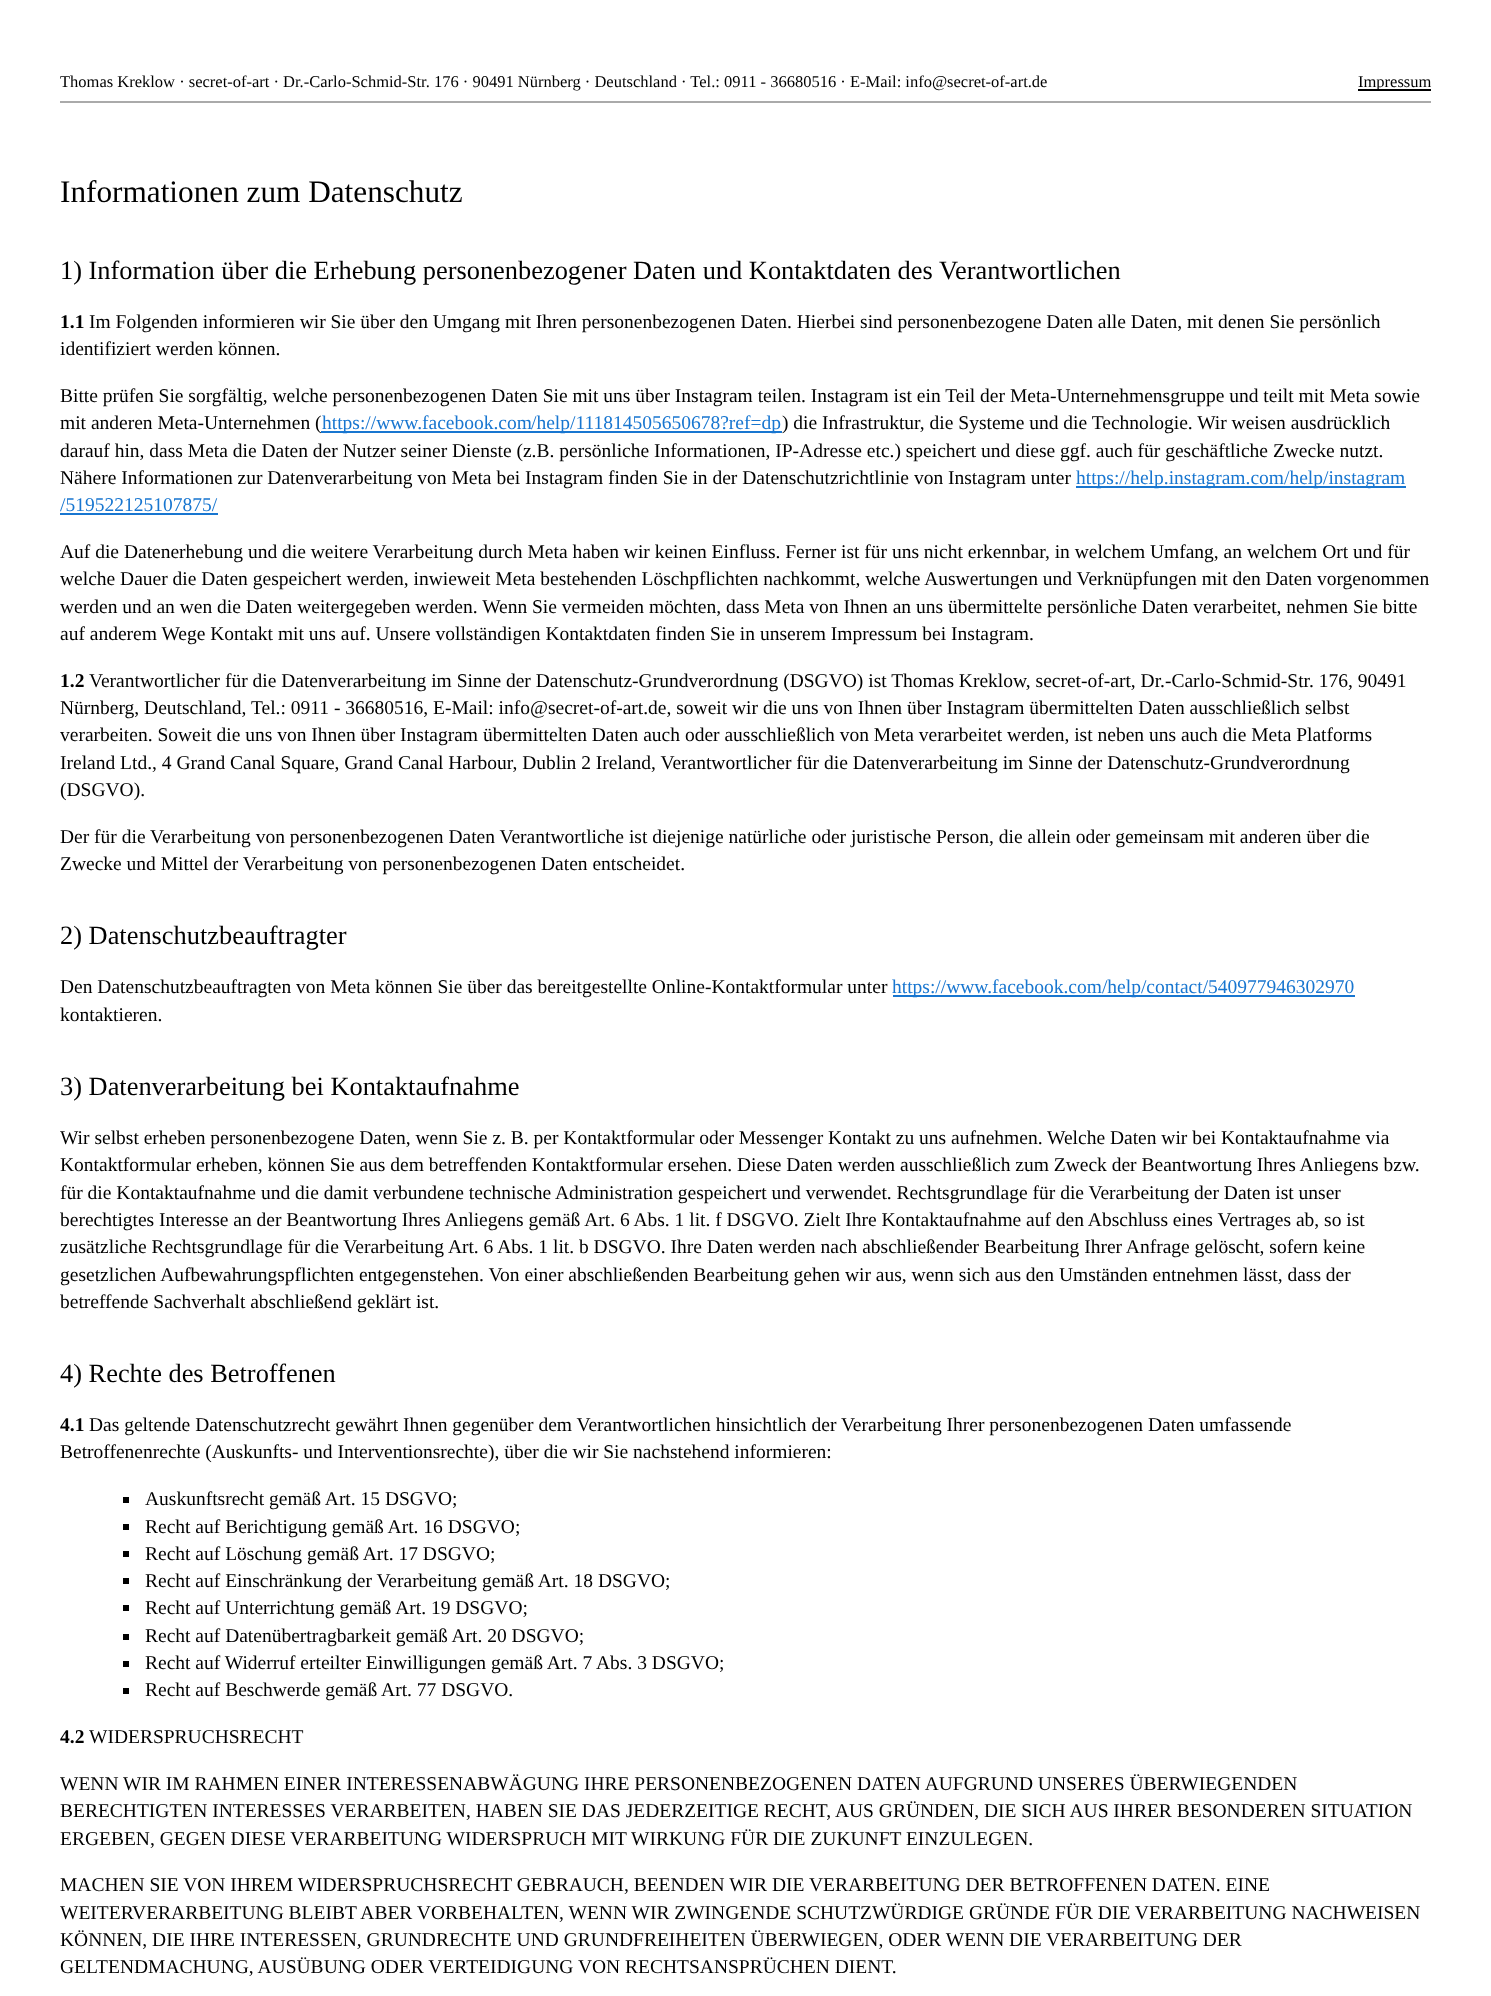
(async () => {
    const canvas = document.querySelector("canvas");
    canvas.width = 1491;
    canvas.height = 1996;
    const context = canvas.getContext("2d");
    context.miterLimit = 4;
    context.fontKerning = "normal";
    function write(s, x, y, font, color) {
        context.font = font;
        context.fillStyle = color;
        context.fillText(s, x, y);
    }
    function block(x, y, w, h, color) {
        context.fillStyle = color;
        context.fillRect(x, y, w, h);
    }

    block(0, 0, 1491, 1996, "rgb(255, 255, 255)");
    block(60, 101, 1371, 2, "rgb(170, 170, 170)");
    write("Thomas Kreklow · secret-of-art · Dr.-Carlo-Schmid-Str. 176 · 90491 Nürnberg · Deutschland · Tel.: 0911 - 36680516 · E-Mail: info@secret-of-art.de", 60, 87, "16.5px Liberation Serif", "rgb(0, 0, 0)");
    block(1358, 89, 73, 2, "rgb(0, 0, 0)");
    write("Impressum", 1358, 87, "16.5px Liberation Serif", "rgb(0, 0, 0)");
    write("Informationen zum Datenschutz", 60, 202, "31.25px Liberation Serif", "rgb(0, 0, 0)");
    write("1) Information über die Erhebung personenbezogener Daten und Kontaktdaten des Verantwortlichen", 60, 279, "26.4px Liberation Serif", "rgb(0, 0, 0)");
    write("1.1", 60, 328, "bold 19.5px Liberation Serif", "rgb(0, 0, 0)");
    write("Im Folgenden informieren wir Sie über den Umgang mit Ihren personenbezogenen Daten. Hierbei sind personenbezogene Daten alle Daten, mit denen Sie persönlich", 89, 328, "19.5px Liberation Serif", "rgb(0, 0, 0)");
    write("identifiziert werden können.", 60, 355, "19.5px Liberation Serif", "rgb(0, 0, 0)");
    write("Bitte prüfen Sie sorgfältig, welche personenbezogenen Daten Sie mit uns über Instagram teilen. Instagram ist ein Teil der Meta-Unternehmensgruppe und teilt mit Meta sowie", 60, 402, "19.5px Liberation Serif", "rgb(0, 0, 0)");
    write("mit anderen Meta-Unternehmen (", 60, 429, "19.5px Liberation Serif", "rgb(0, 0, 0)");
    block(321, 431, 210, 2, "rgb(24, 118, 208)");
    write("https://www.facebook.com", 322, 429, "19.5px Liberation Serif", "rgb(24, 118, 208)");
    block(531, 431, 251, 2, "rgb(24, 118, 208)");
    write("/help/111814505650678?ref=dp", 531, 429, "19.5px Liberation Serif", "rgb(24, 118, 208)");
    write(") die Infrastruktur, die Systeme und die Technologie. Wir weisen ausdrücklich", 782, 429, "19.5px Liberation Serif", "rgb(0, 0, 0)");
    write("darauf hin, dass Meta die Daten der Nutzer seiner Dienste (z.B. persönliche Informationen, IP-Adresse etc.) speichert und diese ggf. auch für geschäftliche Zwecke nutzt.", 60, 457, "19.5px Liberation Serif", "rgb(0, 0, 0)");
    write("Nähere Informationen zur Datenverarbeitung von Meta bei Instagram finden Sie in der Datenschutzrichtlinie von Instagram unter", 60, 484, "19.5px Liberation Serif", "rgb(0, 0, 0)");
    block(1076, 486, 330, 2, "rgb(24, 118, 208)");
    write("https://help.instagram.com/help/instagram", 1076, 484, "19.5px Liberation Serif", "rgb(24, 118, 208)");
    write("/519522125107875/", 60, 511, "19.5px Liberation Serif", "rgb(24, 118, 208)");
    block(60, 513, 158, 2, "rgb(24, 118, 208)");
    write("Auf die Datenerhebung und die weitere Verarbeitung durch Meta haben wir keinen Einfluss. Ferner ist für uns nicht erkennbar, in welchem Umfang, an welchem Ort und für", 60, 558, "19.5px Liberation Serif", "rgb(0, 0, 0)");
    write("welche Dauer die Daten gespeichert werden, inwieweit Meta bestehenden Löschpflichten nachkommt, welche Auswertungen und Verknüpfungen mit den Daten vorgenommen", 60, 585, "19.5px Liberation Serif", "rgb(0, 0, 0)");
    write("werden und an wen die Daten weitergegeben werden. Wenn Sie vermeiden möchten, dass Meta von Ihnen an uns übermittelte persönliche Daten verarbeitet, nehmen Sie bitte", 60, 613, "19.5px Liberation Serif", "rgb(0, 0, 0)");
    write("auf anderem Wege Kontakt mit uns auf. Unsere vollständigen Kontaktdaten finden Sie in unserem Impressum bei Instagram.", 60, 640, "19.5px Liberation Serif", "rgb(0, 0, 0)");
    write("1.2", 60, 687, "bold 19.5px Liberation Serif", "rgb(0, 0, 0)");
    write("Verantwortlicher für die Datenverarbeitung im Sinne der Datenschutz-Grundverordnung (DSGVO) ist Thomas Kreklow, secret-of-art, Dr.-Carlo-Schmid-Str. 176, 90491", 89, 687, "19.5px Liberation Serif", "rgb(0, 0, 0)");
    write("Nürnberg, Deutschland, Tel.: 0911 - 36680516, E-Mail: info@secret-of-art.de, soweit wir die uns von Ihnen über Instagram übermittelten Daten ausschließlich selbst", 60, 714, "19.5px Liberation Serif", "rgb(0, 0, 0)");
    write("verarbeiten. Soweit die uns von Ihnen über Instagram übermittelten Daten auch oder ausschließlich von Meta verarbeitet werden, ist neben uns auch die Meta Platforms", 60, 741, "19.5px Liberation Serif", "rgb(0, 0, 0)");
    write("Ireland Ltd., 4 Grand Canal Square, Grand Canal Harbour, Dublin 2 Ireland, Verantwortlicher für die Datenverarbeitung im Sinne der Datenschutz-Grundverordnung", 60, 769, "19.5px Liberation Serif", "rgb(0, 0, 0)");
    write("(DSGVO).", 60, 796, "19.5px Liberation Serif", "rgb(0, 0, 0)");
    write("Der für die Verarbeitung von personenbezogenen Daten Verantwortliche ist diejenige natürliche oder juristische Person, die allein oder gemeinsam mit anderen über die", 60, 843, "19.5px Liberation Serif", "rgb(0, 0, 0)");
    write("Zwecke und Mittel der Verarbeitung von personenbezogenen Daten entscheidet.", 60, 870, "19.5px Liberation Serif", "rgb(0, 0, 0)");
    write("2) Datenschutzbeauftragter", 60, 944, "26.4px Liberation Serif", "rgb(0, 0, 0)");
    write("Den Datenschutzbeauftragten von Meta können Sie über das bereitgestellte Online-Kontaktformular unter", 60, 993, "19.5px Liberation Serif", "rgb(0, 0, 0)");
    block(893, 995, 462, 2, "rgb(24, 118, 208)");
    write("https://www.facebook.com/help/contact/540977946302970", 892, 993, "19.5px Liberation Serif", "rgb(24, 118, 208)");
    write("kontaktieren.", 60, 1021, "19.5px Liberation Serif", "rgb(0, 0, 0)");
    write("3) Datenverarbeitung bei Kontaktaufnahme", 60, 1095, "26.4px Liberation Serif", "rgb(0, 0, 0)");
    write("Wir selbst erheben personenbezogene Daten, wenn Sie z. B. per Kontaktformular oder Messenger Kontakt zu uns aufnehmen. Welche Daten wir bei Kontaktaufnahme via", 60, 1144, "19.5px Liberation Serif", "rgb(0, 0, 0)");
    write("Kontaktformular erheben, können Sie aus dem betreffenden Kontaktformular ersehen. Diese Daten werden ausschließlich zum Zweck der Beantwortung Ihres Anliegens bzw.", 60, 1171, "19.5px Liberation Serif", "rgb(0, 0, 0)");
    write("für die Kontaktaufnahme und die damit verbundene technische Administration gespeichert und verwendet. Rechtsgrundlage für die Verarbeitung der Daten ist unser", 60, 1199, "19.5px Liberation Serif", "rgb(0, 0, 0)");
    write("berechtigtes Interesse an der Beantwortung Ihres Anliegens gemäß Art. 6 Abs. 1 lit. f DSGVO. Zielt Ihre Kontaktaufnahme auf den Abschluss eines Vertrages ab, so ist", 60, 1226, "19.5px Liberation Serif", "rgb(0, 0, 0)");
    write("zusätzliche Rechtsgrundlage für die Verarbeitung Art. 6 Abs. 1 lit. b DSGVO. Ihre Daten werden nach abschließender Bearbeitung Ihrer Anfrage gelöscht, sofern keine", 60, 1253, "19.5px Liberation Serif", "rgb(0, 0, 0)");
    write("gesetzlichen Aufbewahrungspflichten entgegenstehen. Von einer abschließenden Bearbeitung gehen wir aus, wenn sich aus den Umständen entnehmen lässt, dass der", 60, 1281, "19.5px Liberation Serif", "rgb(0, 0, 0)");
    write("betreffende Sachverhalt abschließend geklärt ist.", 60, 1308, "19.5px Liberation Serif", "rgb(0, 0, 0)");
    write("4) Rechte des Betroffenen", 60, 1382, "26.4px Liberation Serif", "rgb(0, 0, 0)");
    write("4.1", 60, 1431, "bold 19.5px Liberation Serif", "rgb(0, 0, 0)");
    write("Das geltende Datenschutzrecht gewährt Ihnen gegenüber dem Verantwortlichen hinsichtlich der Verarbeitung Ihrer personenbezogenen Daten umfassende", 89, 1431, "19.5px Liberation Serif", "rgb(0, 0, 0)");
    write("Betroffenenrechte (Auskunfts- und Interventionsrechte), über die wir Sie nachstehend informieren:", 60, 1458, "19.5px Liberation Serif", "rgb(0, 0, 0)");
    block(123, 1497, 6, 6, "rgb(0, 0, 0)");
    write("Auskunftsrecht gemäß Art. 15 DSGVO;", 145, 1505, "19.5px Liberation Serif", "rgb(0, 0, 0)");
    block(123, 1524, 6, 6, "rgb(0, 0, 0)");
    write("Recht auf Berichtigung gemäß Art. 16 DSGVO;", 145, 1533, "19.5px Liberation Serif", "rgb(0, 0, 0)");
    block(123, 1551, 6, 6, "rgb(0, 0, 0)");
    write("Recht auf Löschung gemäß Art. 17 DSGVO;", 145, 1560, "19.5px Liberation Serif", "rgb(0, 0, 0)");
    block(123, 1578, 6, 6, "rgb(0, 0, 0)");
    write("Recht auf Einschränkung der Verarbeitung gemäß Art. 18 DSGVO;", 145, 1587, "19.5px Liberation Serif", "rgb(0, 0, 0)");
    block(123, 1605, 6, 6, "rgb(0, 0, 0)");
    write("Recht auf Unterrichtung gemäß Art. 19 DSGVO;", 145, 1614, "19.5px Liberation Serif", "rgb(0, 0, 0)");
    block(123, 1634, 6, 6, "rgb(0, 0, 0)");
    write("Recht auf Datenübertragbarkeit gemäß Art. 20 DSGVO;", 145, 1642, "19.5px Liberation Serif", "rgb(0, 0, 0)");
    block(123, 1661, 6, 6, "rgb(0, 0, 0)");
    write("Recht auf Widerruf erteilter Einwilligungen gemäß Art. 7 Abs. 3 DSGVO;", 145, 1669, "19.5px Liberation Serif", "rgb(0, 0, 0)");
    block(123, 1688, 6, 6, "rgb(0, 0, 0)");
    write("Recht auf Beschwerde gemäß Art. 77 DSGVO.", 145, 1696, "19.5px Liberation Serif", "rgb(0, 0, 0)");
    write("4.2", 60, 1743, "bold 19.5px Liberation Serif", "rgb(0, 0, 0)");
    write("WIDERSPRUCHSRECHT", 89, 1743, "19.5px Liberation Serif", "rgb(0, 0, 0)");
    write("WENN WIR IM RAHMEN EINER INTERESSENABWÄGUNG IHRE PERSONENBEZOGENEN DATEN AUFGRUND UNSERES ÜBERWIEGENDEN", 60, 1790, "19.5px Liberation Serif", "rgb(0, 0, 0)");
    write("BERECHTIGTEN INTERESSES VERARBEITEN, HABEN SIE DAS JEDERZEITIGE RECHT, AUS GRÜNDEN, DIE SICH AUS IHRER BESONDEREN SITUATION", 60, 1817, "19.5px Liberation Serif", "rgb(0, 0, 0)");
    write("ERGEBEN, GEGEN DIESE VERARBEITUNG WIDERSPRUCH MIT WIRKUNG FÜR DIE ZUKUNFT EINZULEGEN.", 60, 1845, "19.5px Liberation Serif", "rgb(0, 0, 0)");
    write("MACHEN SIE VON IHREM WIDERSPRUCHSRECHT GEBRAUCH, BEENDEN WIR DIE VERARBEITUNG DER BETROFFENEN DATEN. EINE", 60, 1891, "19.5px Liberation Serif", "rgb(0, 0, 0)");
    write("WEITERVERARBEITUNG BLEIBT ABER VORBEHALTEN, WENN WIR ZWINGENDE SCHUTZWÜRDIGE GRÜNDE FÜR DIE VERARBEITUNG NACHWEISEN", 60, 1919, "19.5px Liberation Serif", "rgb(0, 0, 0)");
    write("KÖNNEN, DIE IHRE INTERESSEN, GRUNDRECHTE UND GRUNDFREIHEITEN ÜBERWIEGEN, ODER WENN DIE VERARBEITUNG DER", 60, 1946, "19.5px Liberation Serif", "rgb(0, 0, 0)");
    write("GELTENDMACHUNG, AUSÜBUNG ODER VERTEIDIGUNG VON RECHTSANSPRÜCHEN DIENT.", 60, 1973, "19.5px Liberation Serif", "rgb(0, 0, 0)");
})();
